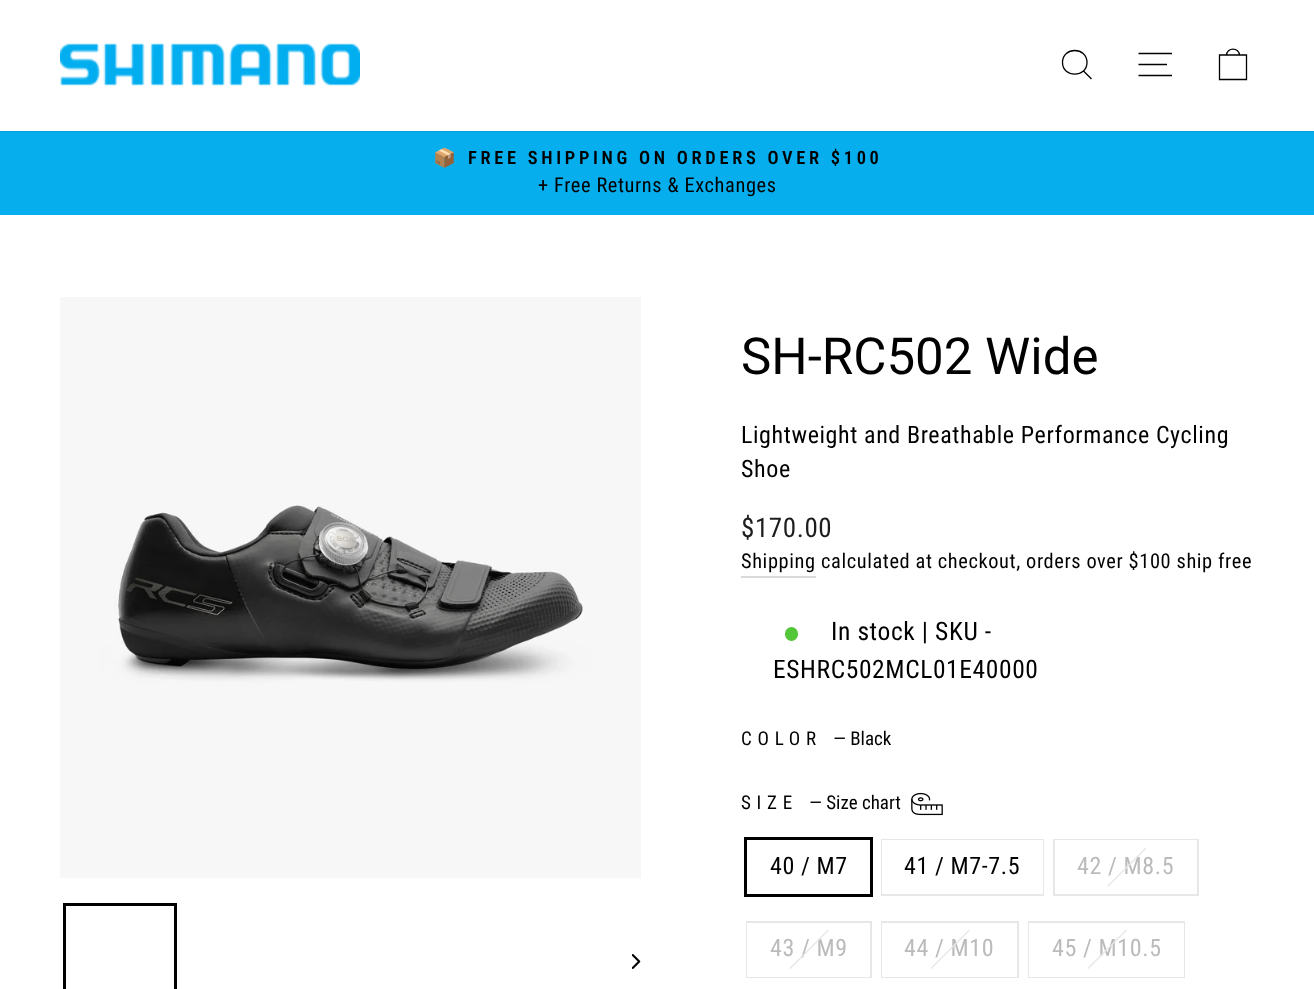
(async () => {
    const canvas = document.querySelector("canvas");
    canvas.width = 1314;
    canvas.height = 989;
    const context = canvas.getContext("2d");
    context.miterLimit = 4;
    context.fontKerning = "normal";
    function write(s, x, y, font, color) {
        context.font = font;
        context.fillStyle = color;
        context.fillText(s, x, y);
    }
    function block(x, y, w, h, color) {
        context.fillStyle = color;
        context.fillRect(x, y, w, h);
    }
    function card(x, y, w, h, r, color) {
        context.fillStyle = color;
        context.beginPath();
        context.roundRect(x, y, w, h, r);
        context.fill();
    }
    async function photo(src, x, y, w, h) {
        const img = new Image();
        img.src = src;
        await img.decode();
        context.drawImage(img, x, y, w, h);
    }

    block(0, 0, 1314, 989, "rgb(255, 255, 255)");
    block(0, 131, 1314, 84, "rgb(6, 174, 238)");
    context.fillStyle = "rgba(0, 0, 0, 0.2)";
    context.filter = "blur(1px)";
    context.beginPath();
    context.rect(0, 0, 1314, 131);
    context.fill();
    context.filter = "none";
    block(0, 0, 1314, 131, "rgb(255, 255, 255)");
    await photo("media/1.png", 60, 43, 300, 43);
    context.beginPath();
    context.moveTo(1087, 62.5);
    context.bezierCurveTo(1087, 78, 1062.5, 78, 1062.5, 62.5);
    context.bezierCurveTo(1062.5, 46.5, 1087, 46.5, 1087, 62.5);
    context.closePath();
    context.moveTo(1091.5, 79);
    context.lineTo(1083.5, 71);
    context.strokeStyle = "rgb(0, 0, 0)";
    context.lineWidth = 1.3;
    context.stroke();
    context.beginPath();
    context.moveTo(1138.5, 53.5);
    context.lineTo(1172, 53.5);
    context.moveTo(1138.5, 64.5);
    context.lineTo(1167, 64.5);
    context.moveTo(1138.5, 75.5);
    context.lineTo(1172, 75.5);
    context.stroke();
    context.beginPath();
    context.moveTo(1219.5, 55);
    context.lineTo(1246.5, 55);
    context.lineTo(1246.5, 79.5);
    context.lineTo(1219.5, 79.5);
    context.closePath();
    context.moveTo(1226.5, 55.5);
    context.bezierCurveTo(1226.5, 47, 1239.5, 47, 1239.5, 55.5);
    context.stroke();
    context.letterSpacing = "3.7px";
    write("📦", 433, 164, "bold 18.4px Noto Color Emoji", "rgb(0, 0, 0)");
    write("FREE SHIPPING ON ORDERS OVER $100", 468, 164, "600 18.4px Roboto Condensed", "rgb(0, 0, 0)");
    context.letterSpacing = "0.6px";
    write("+ Free Returns & Exchanges", 538, 192, "20.4px Roboto Condensed", "rgb(0, 0, 0)");
    await photo("media/2.png", 60, 297, 581, 581);
    context.lineWidth = 3;
    context.strokeRect(64.5, 904.5, 111, 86);
    await photo("media/3.png", 632, 954, 9, 15);
    context.letterSpacing = "0px";
    write("SH-RC502 Wide", 741, 374, "51px Roboto", "rgb(0, 0, 0)");
    context.letterSpacing = "0.6px";
    write("Lightweight and Breathable Performance Cycling", 741, 443, "24px Roboto Condensed", "rgb(0, 0, 0)");
    write("Shoe", 741, 477, "24px Roboto Condensed", "rgb(0, 0, 0)");
    write("$170.00", 741, 537, "27px Roboto Condensed", "rgb(28, 29, 29)");
    block(741, 576, 75, 2, "rgb(217, 217, 217)");
    write("Shipping", 741, 568, "20.4px Roboto Condensed", "rgb(0, 0, 0)");
    write("calculated at checkout, orders over $100 ship free", 821, 568, "20.4px Roboto Condensed", "rgb(0, 0, 0)");
    card(785, 627, 13, 14, 6.5, "rgb(84, 198, 58)");
    write("In stock | SKU -", 831, 640, "25.5px Roboto Condensed", "rgb(0, 0, 0)");
    write("ESHRC502MCL01E40000", 773, 678, "25.5px Roboto Condensed", "rgb(0, 0, 0)");
    context.letterSpacing = "5.75px";
    write("COLOR", 741, 745, "19px Roboto Condensed", "rgb(0, 0, 0)");
    context.letterSpacing = "0px";
    write("— Black", 833, 745, "19px Roboto Condensed", "rgb(0, 0, 0)");
    context.letterSpacing = "5.75px";
    write("SIZE", 741, 809, "19px Roboto Condensed", "rgb(0, 0, 0)");
    context.letterSpacing = "0px";
    write("— Size chart", 809, 809, "19px Roboto Condensed", "rgb(0, 0, 0)");
    await photo("media/4.png", 911, 792, 32, 24);
    context.strokeRect(745.5, 838.5, 126, 57);
    context.letterSpacing = "0.6px";
    write("40 / M7", 770, 874, "24px Roboto Condensed", "rgb(0, 0, 0)");
    context.strokeStyle = "rgb(231, 231, 231)";
    context.lineWidth = 2;
    context.strokeRect(882, 840, 161, 55);
    block(882, 840, 161, 54, "rgb(255, 255, 255)");
    write("41 / M7-7.5", 904, 874, "24px Roboto Condensed", "rgb(0, 0, 0)");
    context.strokeRect(1054, 840, 144, 55);
    block(1055, 840, 142, 1, "rgb(255, 255, 255)");
    write("42 / M8.5", 1077, 874, "24px Roboto Condensed", "rgb(187, 187, 187)");
    context.fillStyle = "rgb(231, 231, 231)";
    context.beginPath();
    context.moveTo(1145.5, 847.5);
    context.lineTo(1146.5, 848.5);
    context.lineTo(1108, 887);
    context.lineTo(1107, 886);
    context.closePath();
    context.fill();
    context.strokeRect(747, 922, 124, 55);
    block(747, 923, 123, 54, "rgb(255, 255, 255)");
    write("43 / M9", 770, 956, "24px Roboto Condensed", "rgb(187, 187, 187)");
    context.fillStyle = "rgb(231, 231, 231)";
    context.beginPath();
    context.moveTo(828, 929.5);
    context.lineTo(829, 930.5);
    context.lineTo(790.5, 969);
    context.lineTo(789.5, 968);
    context.closePath();
    context.fill();
    context.strokeRect(882, 922, 136, 55);
    block(882, 923, 135, 54, "rgb(255, 255, 255)");
    write("44 / M10", 904, 956, "24px Roboto Condensed", "rgb(187, 187, 187)");
    context.fillStyle = "rgb(231, 231, 231)";
    context.beginPath();
    context.moveTo(969, 929.5);
    context.lineTo(970, 930.5);
    context.lineTo(931.5, 969);
    context.lineTo(930.5, 968);
    context.closePath();
    context.fill();
    context.strokeRect(1029, 922, 155, 55);
    block(1029, 923, 155, 54, "rgb(255, 255, 255)");
    write("45 / M10.5", 1052, 956, "24px Roboto Condensed", "rgb(187, 187, 187)");
    context.fillStyle = "rgb(231, 231, 231)";
    context.beginPath();
    context.moveTo(1126, 929.5);
    context.lineTo(1127, 930.5);
    context.lineTo(1088.5, 969);
    context.lineTo(1087.5, 968);
    context.closePath();
    context.fill();
})();
